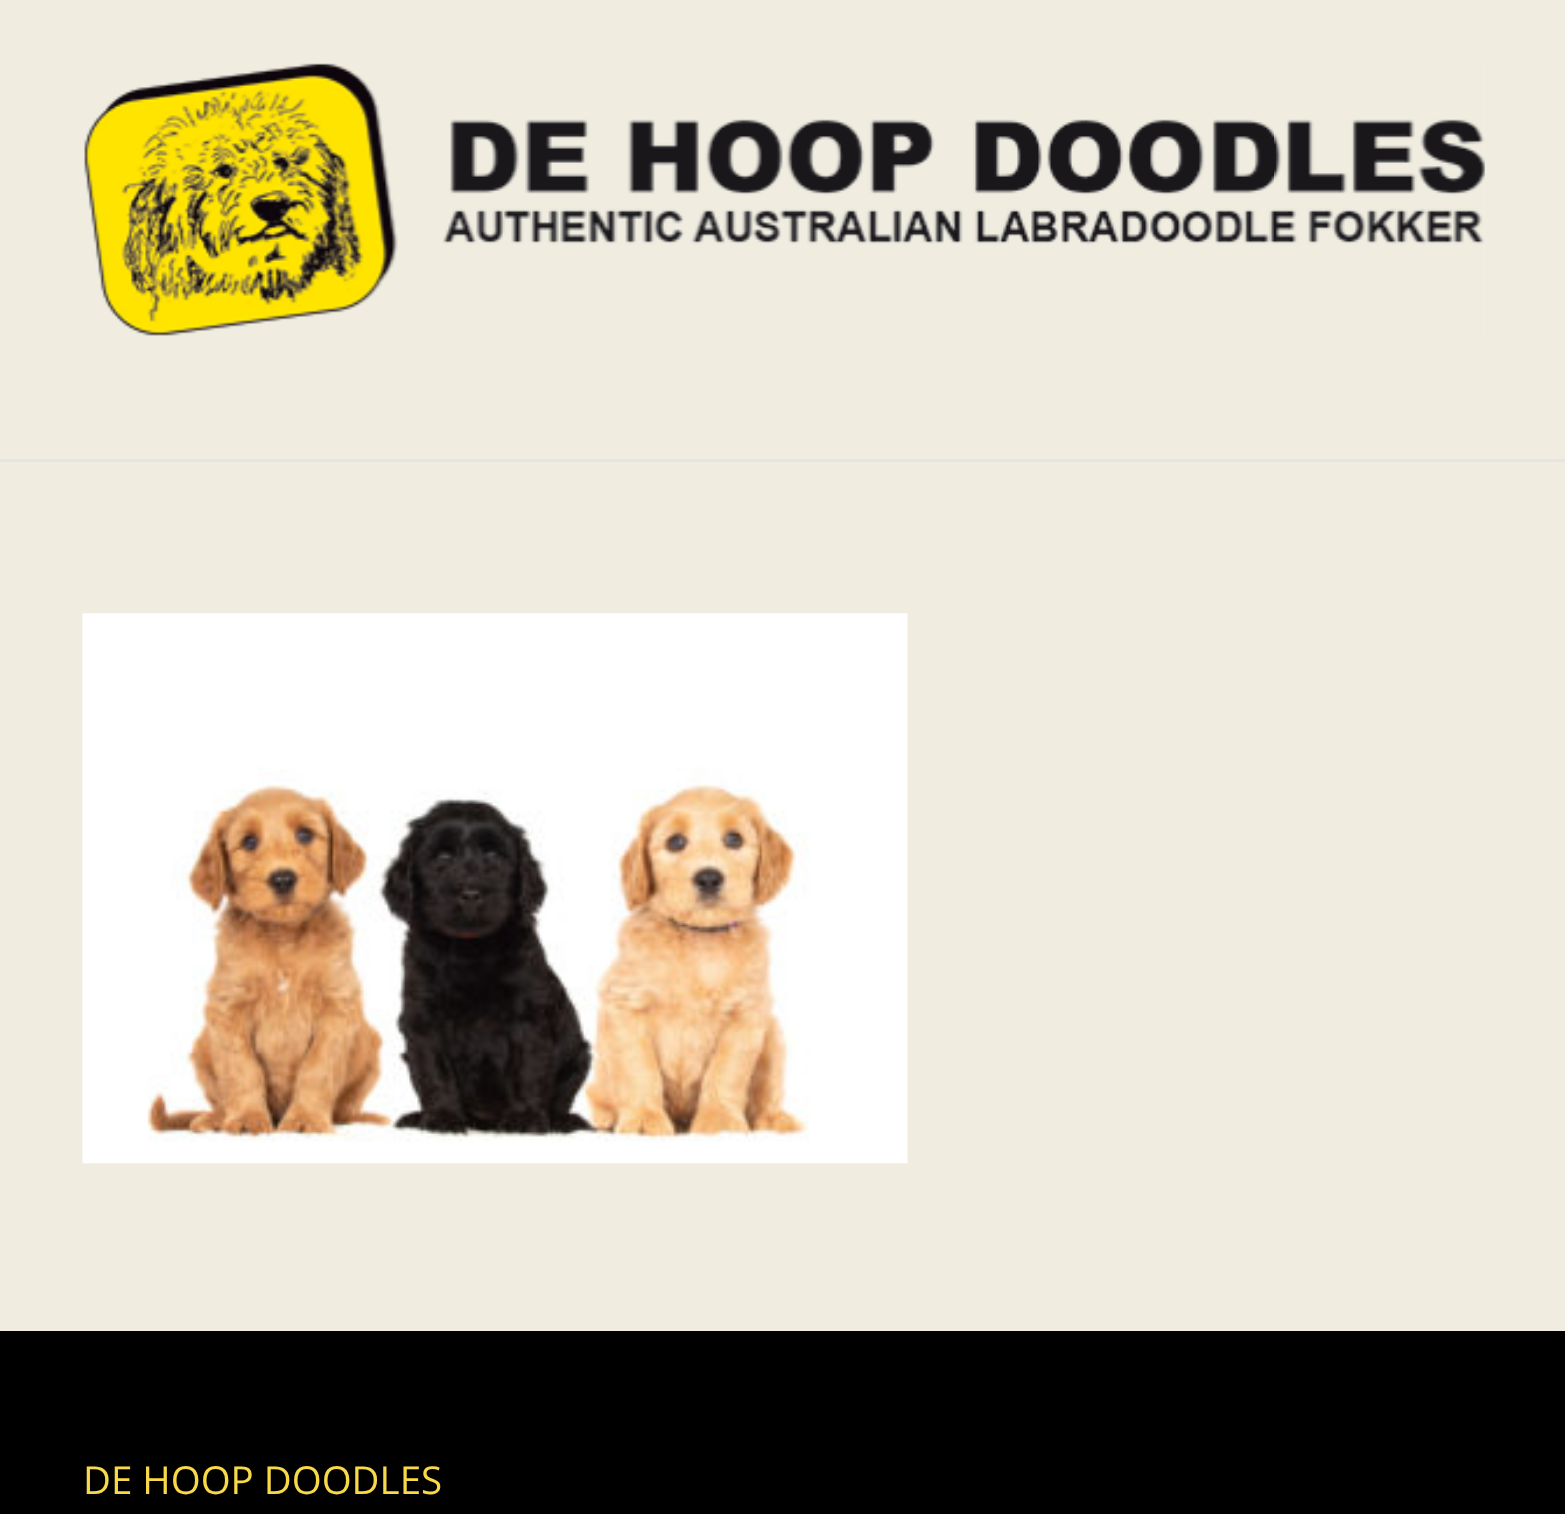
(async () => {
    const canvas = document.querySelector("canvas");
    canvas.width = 1565;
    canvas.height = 1514;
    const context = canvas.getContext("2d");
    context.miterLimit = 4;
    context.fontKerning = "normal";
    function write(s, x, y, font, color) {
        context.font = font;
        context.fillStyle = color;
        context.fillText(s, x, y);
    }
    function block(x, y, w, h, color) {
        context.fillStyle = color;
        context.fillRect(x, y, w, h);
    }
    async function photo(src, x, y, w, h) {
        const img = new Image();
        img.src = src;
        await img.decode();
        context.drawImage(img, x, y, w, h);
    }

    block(0, 0, 1565, 1514, "rgb(240, 237, 224)");
    block(0, 459, 1565, 3, "rgb(229, 229, 229)");
    await photo("media/1.png", 84, 63, 1401, 273);
    await photo("media/2.png", 82, 613, 826, 551);
    block(0, 1331, 1565, 183, "rgb(0, 0, 0)");
    write("DE HOOP DOODLES", 83, 1494, "38.5px Open Sans", "rgb(248, 217, 72)");
})();
